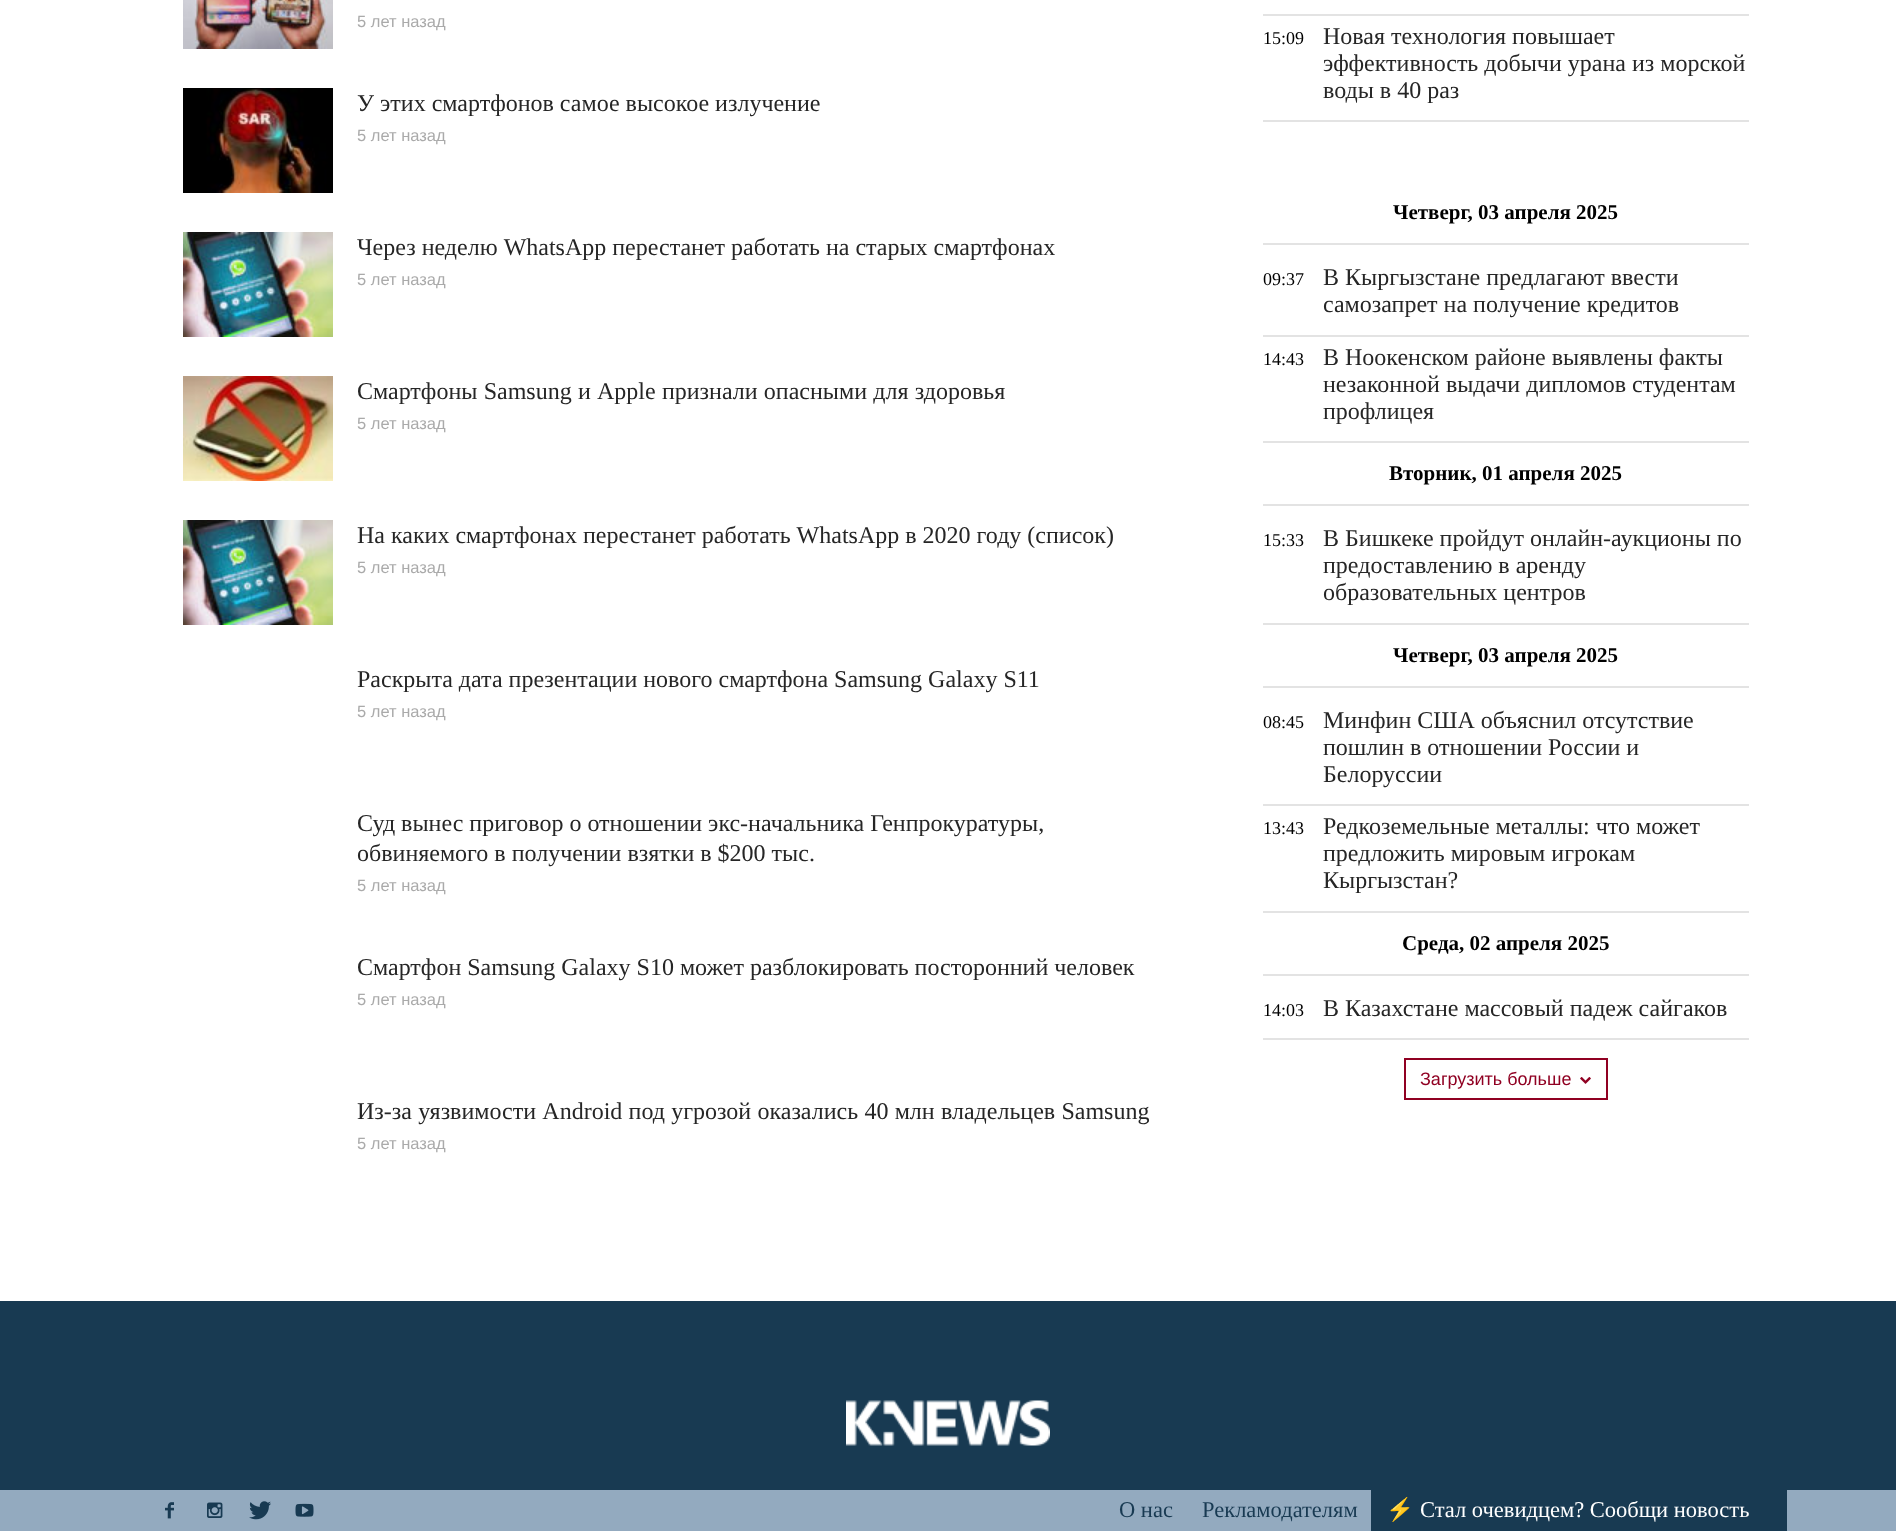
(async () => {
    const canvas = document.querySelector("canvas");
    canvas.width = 1896;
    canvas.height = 1531;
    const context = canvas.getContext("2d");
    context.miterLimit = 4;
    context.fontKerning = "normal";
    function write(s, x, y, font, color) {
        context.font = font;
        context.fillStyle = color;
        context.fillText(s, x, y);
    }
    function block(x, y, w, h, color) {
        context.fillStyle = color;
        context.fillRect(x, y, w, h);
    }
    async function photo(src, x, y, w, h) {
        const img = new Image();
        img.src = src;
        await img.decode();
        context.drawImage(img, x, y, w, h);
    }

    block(0, 0, 1896, 1531, "rgb(255, 255, 255)");
    await photo("media/1.png", 183, 0, 150, 49);
    write("5 лет назад", 357, 27, "16.5px Liberation Sans", "rgb(170, 170, 170)");
    await photo("media/2.png", 183, 88, 150, 105);
    write("У этих смартфонов самое высокое излучение", 357, 111, "24px Liberation Serif", "rgb(38, 38, 38)");
    write("5 лет назад", 357, 141, "16.5px Liberation Sans", "rgb(170, 170, 170)");
    await photo("media/3.png", 183, 232, 150, 105);
    write("Через неделю WhatsApp перестанет работать на старых смартфонах", 357, 255, "24px Liberation Serif", "rgb(38, 38, 38)");
    write("5 лет назад", 357, 285, "16.5px Liberation Sans", "rgb(170, 170, 170)");
    await photo("media/4.png", 183, 376, 150, 105);
    context.wordSpacing = "0.25px";
    write("Смартфоны Samsung и Apple признали опасными для здоровья", 357, 399, "24px Liberation Serif", "rgb(38, 38, 38)");
    context.wordSpacing = "0px";
    write("5 лет назад", 357, 429, "16.5px Liberation Sans", "rgb(170, 170, 170)");
    await photo("media/3.png", 183, 520, 150, 105);
    write("На каких смартфонах перестанет работать WhatsApp в 2020 году (список)", 357, 543, "24px Liberation Serif", "rgb(38, 38, 38)");
    write("5 лет назад", 357, 573, "16.5px Liberation Sans", "rgb(170, 170, 170)");
    write("Раскрыта дата презентации нового смартфона Samsung Galaxy S11", 357, 687, "24px Liberation Serif", "rgb(38, 38, 38)");
    write("5 лет назад", 357, 717, "16.5px Liberation Sans", "rgb(170, 170, 170)");
    write("Суд вынес приговор о отношении экс-начальника Генпрокуратуры,", 357, 831, "24px Liberation Serif", "rgb(38, 38, 38)");
    write("обвиняемого в получении взятки в $200 тыс.", 357, 861, "24px Liberation Serif", "rgb(38, 38, 38)");
    write("5 лет назад", 357, 891, "16.5px Liberation Sans", "rgb(170, 170, 170)");
    write("Смартфон Samsung Galaxy S10 может разблокировать посторонний человек", 357, 975, "24px Liberation Serif", "rgb(38, 38, 38)");
    write("5 лет назад", 357, 1005, "16.5px Liberation Sans", "rgb(170, 170, 170)");
    context.wordSpacing = "0.25px";
    write("Из-за уязвимости Android под угрозой оказались 40 млн владельцев Samsung", 357, 1119, "24px Liberation Serif", "rgb(38, 38, 38)");
    context.wordSpacing = "0px";
    write("5 лет назад", 357, 1149, "16.5px Liberation Sans", "rgb(170, 170, 170)");
    block(1263, 14, 486, 2, "rgb(227, 227, 227)");
    block(1263, 120, 486, 2, "rgb(227, 227, 227)");
    write("15:09", 1263, 44, "18px Liberation Serif", "rgb(0, 0, 0)");
    write("Новая технология повышает", 1323, 44, "24px Liberation Serif", "rgb(38, 38, 38)");
    write("эффективность добычи урана из морской", 1323, 71, "24px Liberation Serif", "rgb(38, 38, 38)");
    write("воды в 40 раз", 1323, 98, "24px Liberation Serif", "rgb(38, 38, 38)");
    block(1263, 335, 486, 2, "rgb(227, 227, 227)");
    block(1263, 243, 486, 2, "rgb(227, 227, 227)");
    write("Четверг, 03 апреля 2025", 1393, 219, "bold 21px Liberation Serif", "rgb(0, 0, 0)");
    write("09:37", 1263, 285, "18px Liberation Serif", "rgb(0, 0, 0)");
    write("В Кыргызстане предлагают ввести", 1323, 285, "24px Liberation Serif", "rgb(38, 38, 38)");
    write("самозапрет на получение кредитов", 1323, 312, "24px Liberation Serif", "rgb(38, 38, 38)");
    block(1263, 441, 486, 2, "rgb(227, 227, 227)");
    write("14:43", 1263, 365, "18px Liberation Serif", "rgb(0, 0, 0)");
    write("В Ноокенском районе выявлены факты", 1323, 365, "24px Liberation Serif", "rgb(38, 38, 38)");
    write("незаконной выдачи дипломов студентам", 1323, 392, "24px Liberation Serif", "rgb(38, 38, 38)");
    write("профлицея", 1323, 419, "24px Liberation Serif", "rgb(38, 38, 38)");
    block(1263, 623, 486, 2, "rgb(227, 227, 227)");
    block(1263, 504, 486, 2, "rgb(227, 227, 227)");
    write("Вторник, 01 апреля 2025", 1389, 480, "bold 21px Liberation Serif", "rgb(0, 0, 0)");
    write("15:33", 1263, 546, "18px Liberation Serif", "rgb(0, 0, 0)");
    write("В Бишкеке пройдут онлайн-аукционы по", 1323, 546, "24px Liberation Serif", "rgb(38, 38, 38)");
    write("предоставлению в аренду", 1323, 573, "24px Liberation Serif", "rgb(38, 38, 38)");
    write("образовательных центров", 1323, 600, "24px Liberation Serif", "rgb(38, 38, 38)");
    block(1263, 804, 486, 2, "rgb(227, 227, 227)");
    block(1263, 686, 486, 2, "rgb(227, 227, 227)");
    write("Четверг, 03 апреля 2025", 1393, 662, "bold 21px Liberation Serif", "rgb(0, 0, 0)");
    write("08:45", 1263, 728, "18px Liberation Serif", "rgb(0, 0, 0)");
    write("Минфин США объяснил отсутствие", 1323, 728, "24px Liberation Serif", "rgb(38, 38, 38)");
    write("пошлин в отношении России и", 1323, 755, "24px Liberation Serif", "rgb(38, 38, 38)");
    write("Белоруссии", 1323, 782, "24px Liberation Serif", "rgb(38, 38, 38)");
    block(1263, 911, 486, 2, "rgb(227, 227, 227)");
    write("13:43", 1263, 834, "18px Liberation Serif", "rgb(0, 0, 0)");
    write("Редкоземельные металлы: что может", 1323, 834, "24px Liberation Serif", "rgb(38, 38, 38)");
    write("предложить мировым игрокам", 1323, 861, "24px Liberation Serif", "rgb(38, 38, 38)");
    write("Кыргызстан?", 1323, 888, "24px Liberation Serif", "rgb(38, 38, 38)");
    block(1263, 1038, 486, 2, "rgb(227, 227, 227)");
    block(1263, 974, 486, 2, "rgb(227, 227, 227)");
    write("Среда, 02 апреля 2025", 1402, 950, "bold 21px Liberation Serif", "rgb(0, 0, 0)");
    write("14:03", 1263, 1016, "18px Liberation Serif", "rgb(0, 0, 0)");
    write("В Казахстане массовый падеж сайгаков", 1323, 1016, "24px Liberation Serif", "rgb(38, 38, 38)");
    context.strokeStyle = "rgb(144, 0, 34)";
    context.lineWidth = 2;
    context.strokeRect(1405, 1059, 202, 40);
    write("Загрузить больше", 1420, 1085, "18px Liberation Sans", "rgb(144, 0, 34)");
    await photo("media/5.png", 1580, 1077, 11, 7);
    block(0, 1301, 1896, 189, "rgb(24, 58, 82)");
    await photo("media/6.png", 846, 1400, 204, 46);
    block(0, 1490, 1896, 41, "rgb(147, 170, 191)");
    await photo("media/7.png", 165, 1502, 9, 17);
    await photo("media/8.png", 207, 1502, 16, 16);
    await photo("media/9.png", 249, 1501, 22, 19);
    await photo("media/10.png", 295, 1503, 19, 14);
    write("О нас", 1119, 1517, "22.5px Liberation Serif", "rgb(24, 58, 82)");
    write("Рекламодателям", 1202, 1517, "22.5px Liberation Serif", "rgb(24, 58, 82)");
    block(1371, 1490, 416, 41, "rgb(24, 58, 82)");
    write("⚡", 1386, 1517, "22.5px Noto Color Emoji", "rgb(255, 255, 255)");
    write("Стал очевидцем? Сообщи новость", 1420, 1517, "22.5px Liberation Serif", "rgb(255, 255, 255)");
})();
